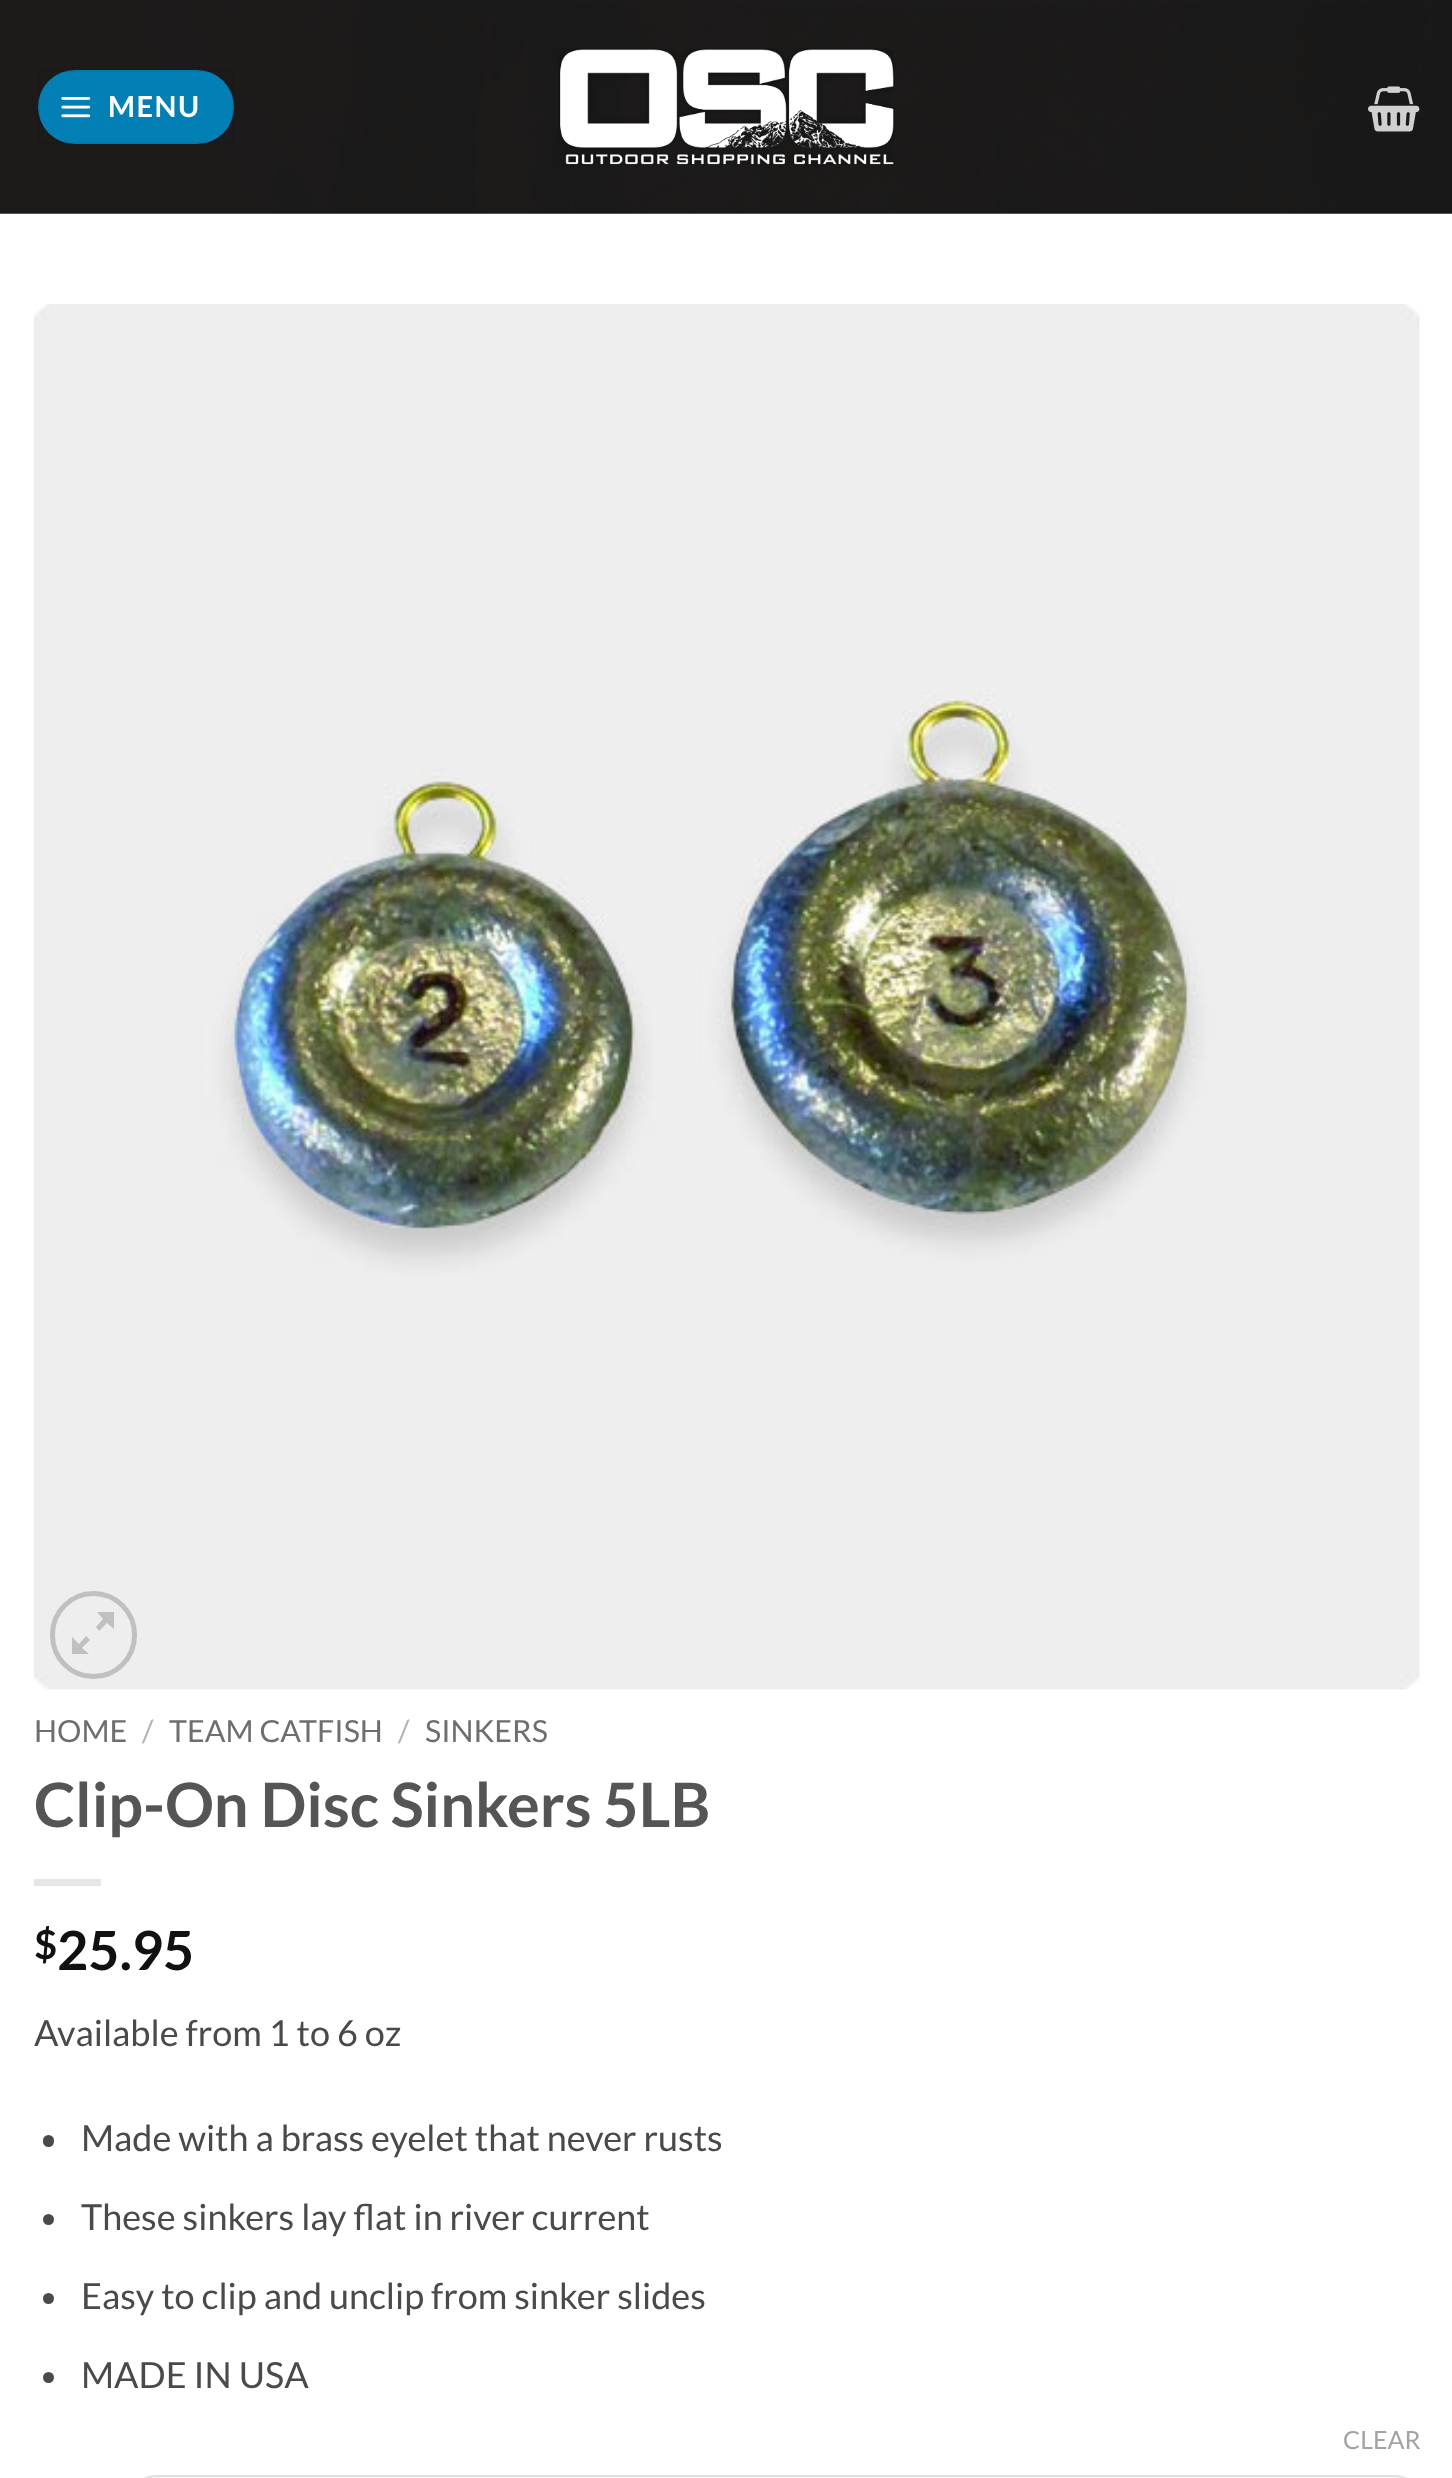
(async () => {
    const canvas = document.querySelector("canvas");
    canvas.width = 1452;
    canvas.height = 2478;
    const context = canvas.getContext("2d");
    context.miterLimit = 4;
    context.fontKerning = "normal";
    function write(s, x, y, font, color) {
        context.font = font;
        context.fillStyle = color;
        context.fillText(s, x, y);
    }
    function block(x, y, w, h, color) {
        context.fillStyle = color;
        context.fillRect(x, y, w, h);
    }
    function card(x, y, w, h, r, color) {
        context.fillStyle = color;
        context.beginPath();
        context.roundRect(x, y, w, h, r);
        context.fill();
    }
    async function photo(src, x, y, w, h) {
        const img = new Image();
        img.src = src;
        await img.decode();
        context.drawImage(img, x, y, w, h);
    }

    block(0, 0, 1452, 2478, "rgb(255, 255, 255)");
    await photo("media/1.png", 0, 0, 1452, 214);
    card(38, 70, 196, 74, 37, "rgb(2, 127, 180)");
    context.strokeStyle = "rgba(0, 0, 0, 0.05)";
    context.lineWidth = 2;
    context.strokeRect(39, 71, 194, 72);
    await photo("media/2.png", 61, 97, 30, 21);
    context.letterSpacing = "1.5px";
    write("MENU", 108, 117, "bold 29px Lato", "rgb(255, 255, 255)");
    await photo("media/3.png", 558, 48, 337, 117);
    await photo("media/4.png", 1368, 86, 52, 46);
    await photo("media/5.png", 34, 304, 1386, 1386);
    context.beginPath();
    context.roundRect(52.5, 1593.5, 82, 83, 41);
    context.strokeStyle = "rgb(192, 192, 192)";
    context.lineWidth = 5;
    context.stroke();
    context.fillStyle = "rgb(192, 192, 192)";
    context.beginPath();
    context.moveTo(114, 1612);
    context.lineTo(114, 1629);
    context.lineTo(107, 1623);
    context.lineTo(99, 1631);
    context.lineTo(96, 1627);
    context.lineTo(103, 1619);
    context.lineTo(97, 1612);
    context.closePath();
    context.moveTo(90, 1640);
    context.lineTo(82, 1648);
    context.lineTo(89, 1654);
    context.lineTo(72, 1654);
    context.lineTo(72, 1637);
    context.lineTo(79, 1644);
    context.lineTo(86, 1636);
    context.closePath();
    context.fill();
    context.letterSpacing = "0px";
    write("HOME", 34, 1742, "30.5px Lato", "rgb(110, 110, 110)");
    write("/", 142, 1742, "30.5px Lato", "rgb(178, 178, 178)");
    write("TEAM CATFISH", 169, 1742, "30.5px Lato", "rgb(110, 110, 110)");
    write("/", 398, 1742, "30.5px Lato", "rgb(178, 178, 178)");
    write("SINKERS", 425, 1742, "30.5px Lato", "rgb(110, 110, 110)");
    write("Clip-On Disc Sinkers 5LB", 34, 1827, "bold 61.25px Lato", "rgb(85, 85, 85)");
    block(34, 1879, 67, 7, "rgb(230, 230, 230)");
    write("$", 34, 1959, "bold 40px Lato", "rgb(17, 17, 17)");
    write("25.95", 57, 1970, "bold 54px Lato", "rgb(17, 17, 17)");
    write("Available from 1 to 6 oz", 34, 2046, "36px Lato", "rgb(74, 74, 74)");
    card(43, 2135, 11, 12, 5.5, "rgb(74, 74, 74)");
    write("Made with a brass eyelet that never rusts", 81, 2151, "36px Lato", "rgb(74, 74, 74)");
    context.beginPath();
    context.arc(48.5, 2219.5, 5.5, 0, Math.PI * 2);
    context.fill();
    write("These sinkers lay flat in river current", 81, 2230, "36px Lato", "rgb(74, 74, 74)");
    context.beginPath();
    context.arc(48.5, 2298.5, 5.5, 0, Math.PI * 2);
    context.fill();
    write("Easy to clip and unclip from sinker slides", 81, 2309, "36px Lato", "rgb(74, 74, 74)");
    context.beginPath();
    context.arc(48.5, 2377.5, 5.5, 0, Math.PI * 2);
    context.fill();
    write("MADE IN USA", 81, 2388, "36px Lato", "rgb(74, 74, 74)");
    write("CLEAR", 1343, 2449, "25px Lato", "rgb(163, 163, 163)");
    card(131, 2475, 1289, 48, 45, "rgb(247, 247, 247)");
    context.beginPath();
    context.roundRect(132, 2476, 1287, 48, 44);
    context.strokeStyle = "rgba(0, 0, 0, 0.09)";
    context.lineWidth = 2;
    context.stroke();
})();
